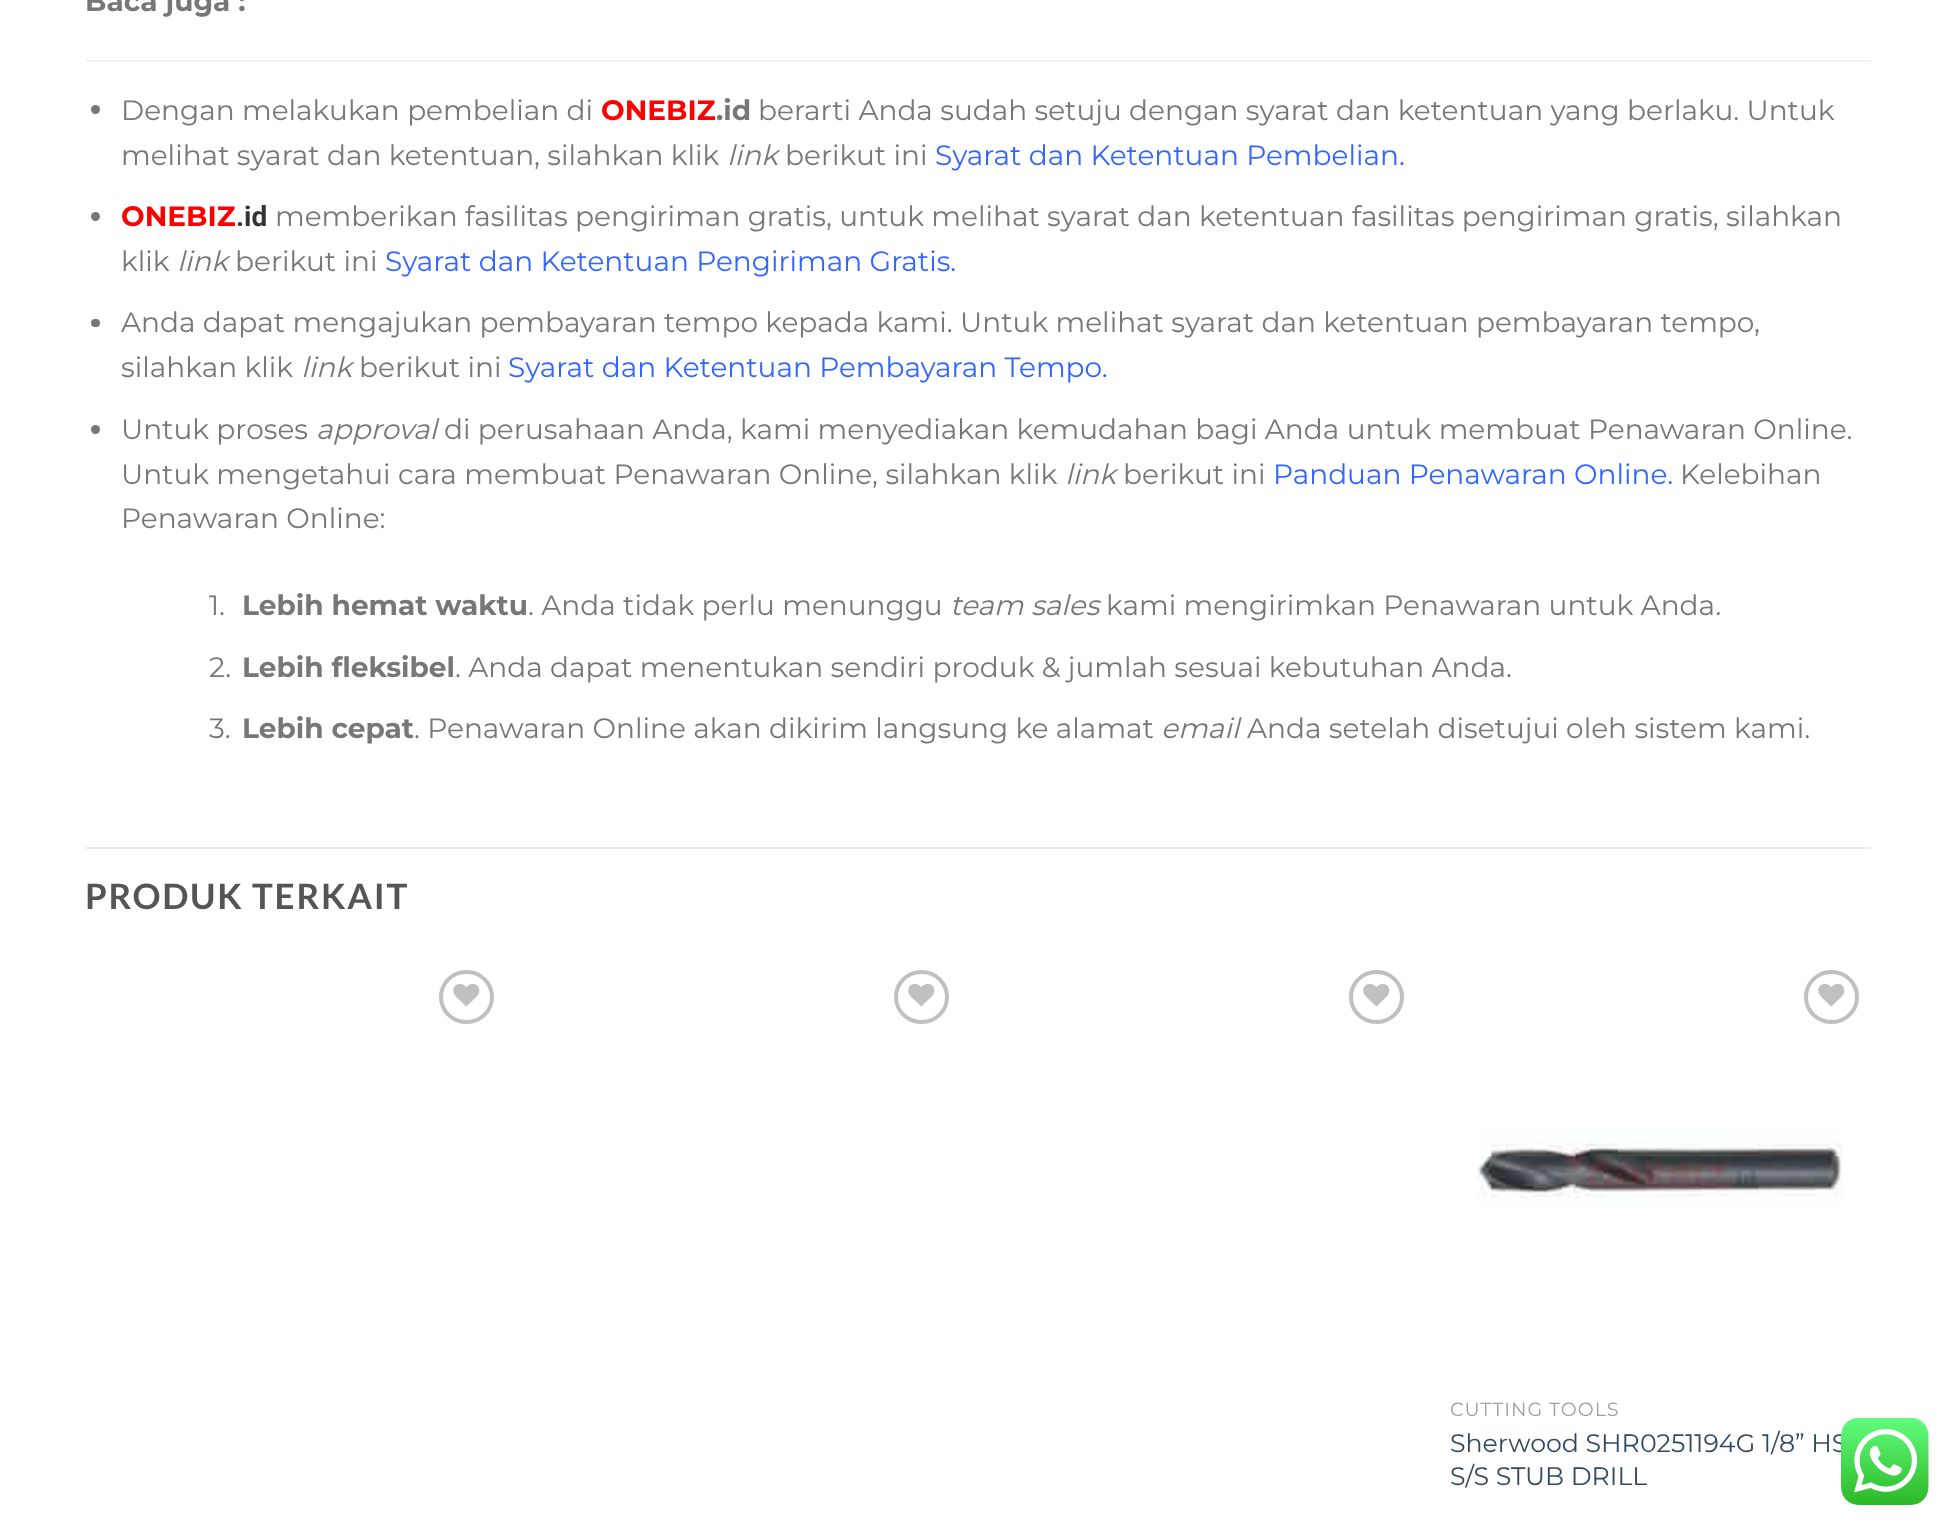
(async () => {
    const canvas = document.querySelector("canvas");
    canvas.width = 1954;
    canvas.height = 1531;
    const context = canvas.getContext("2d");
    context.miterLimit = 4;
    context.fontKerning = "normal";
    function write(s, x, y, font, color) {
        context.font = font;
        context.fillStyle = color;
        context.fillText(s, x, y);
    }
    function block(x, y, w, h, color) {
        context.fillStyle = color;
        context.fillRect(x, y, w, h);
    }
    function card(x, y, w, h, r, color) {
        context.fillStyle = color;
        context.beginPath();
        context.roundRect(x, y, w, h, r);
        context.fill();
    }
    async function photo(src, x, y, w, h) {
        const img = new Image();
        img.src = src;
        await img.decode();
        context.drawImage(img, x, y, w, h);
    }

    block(0, 0, 1954, 1531, "rgb(255, 255, 255)");
    write("Baca juga :", 85, 11, "bold 28px Montserrat", "rgb(119, 119, 119)");
    block(86, 60, 1785, 2, "rgb(242, 242, 242)");
    context.fillStyle = "rgb(119, 119, 119)";
    context.beginPath();
    context.arc(95.5, 109.5, 4.5, 0, Math.PI * 2);
    context.fill();
    write("Dengan melakukan pembelian di", 121, 120, "28px Montserrat", "rgb(119, 119, 119)");
    write("ONEBIZ", 601, 120, "bold 28px Montserrat", "rgb(255, 0, 0)");
    write(".id", 716, 120, "bold 28px Montserrat", "rgb(119, 119, 119)");
    write("berarti Anda sudah setuju dengan syarat dan ketentuan yang berlaku. Untuk", 758, 120, "28px Montserrat", "rgb(119, 119, 119)");
    write("melihat syarat dan ketentuan, silahkan klik", 121, 165, "28px Montserrat", "rgb(119, 119, 119)");
    write("link", 727, 165, "italic 28px Montserrat", "rgb(119, 119, 119)");
    write("berikut ini", 785, 165, "28px Montserrat", "rgb(119, 119, 119)");
    write("Syarat dan Ketentuan Pembelian.", 935, 165, "28px Montserrat", "rgb(51, 102, 255)");
    context.fillStyle = "rgb(119, 119, 119)";
    context.beginPath();
    context.arc(95.5, 216.5, 4.5, 0, Math.PI * 2);
    context.fill();
    write("ONEBIZ", 121, 226, "bold 28px Montserrat", "rgb(255, 0, 0)");
    write(".id", 236, 226, "bold 28px Roboto", "rgb(51, 51, 51)");
    write("memberikan fasilitas pengiriman gratis, untuk melihat syarat dan ketentuan fasilitas pengiriman gratis, silahkan", 275, 226, "28px Montserrat", "rgb(119, 119, 119)");
    write("klik", 121, 271, "28px Montserrat", "rgb(119, 119, 119)");
    write("link", 177, 271, "italic 28px Montserrat", "rgb(119, 119, 119)");
    write("berikut ini", 235, 271, "28px Montserrat", "rgb(119, 119, 119)");
    write("Syarat dan Ketentuan Pengiriman Gratis.", 385, 271, "28px Montserrat", "rgb(51, 102, 255)");
    card(91, 319, 9, 8, 4, "rgb(119, 119, 119)");
    write("Anda dapat mengajukan pembayaran tempo kepada kami. Untuk melihat syarat dan ketentuan pembayaran tempo,", 121, 332, "28px Montserrat", "rgb(119, 119, 119)");
    write("silahkan klik", 121, 377, "28px Montserrat", "rgb(119, 119, 119)");
    write("link", 301, 377, "italic 28px Montserrat", "rgb(119, 119, 119)");
    write("berikut ini", 359, 377, "28px Montserrat", "rgb(119, 119, 119)");
    write("Syarat dan Ketentuan Pembayaran Tempo.", 508, 377, "28px Montserrat", "rgb(51, 102, 255)");
    context.fillStyle = "rgb(119, 119, 119)";
    context.beginPath();
    context.arc(95.5, 429.5, 4.5, 0, Math.PI * 2);
    context.fill();
    write("Untuk proses", 121, 439, "28px Montserrat", "rgb(119, 119, 119)");
    write("approval", 316, 439, "italic 28px Montserrat", "rgb(119, 119, 119)");
    write("di perusahaan Anda, kami menyediakan kemudahan bagi Anda untuk membuat Penawaran Online.", 444, 439, "28px Montserrat", "rgb(119, 119, 119)");
    write("Untuk mengetahui cara membuat Penawaran Online, silahkan klik", 121, 484, "28px Montserrat", "rgb(119, 119, 119)");
    write("link", 1065, 484, "italic 28px Montserrat", "rgb(119, 119, 119)");
    write("berikut ini", 1123, 484, "28px Montserrat", "rgb(119, 119, 119)");
    write("Panduan Penawaran Online.", 1273, 484, "28px Montserrat", "rgb(51, 102, 255)");
    write("Kelebihan", 1680, 484, "28px Montserrat", "rgb(119, 119, 119)");
    write("Penawaran Online:", 121, 528, "28px Montserrat", "rgb(119, 119, 119)");
    write("1.", 209, 615, "28px Montserrat", "rgb(119, 119, 119)");
    write("Lebih hemat waktu", 242, 615, "bold 28px Montserrat", "rgb(119, 119, 119)");
    write(". Anda tidak perlu menunggu", 528, 615, "28px Montserrat", "rgb(119, 119, 119)");
    write("team sales", 950, 615, "italic 28px Montserrat", "rgb(119, 119, 119)");
    write("kami mengirimkan Penawaran untuk Anda", 1106, 615, "28px Montserrat", "rgb(119, 119, 119)");
    write(".", 1715, 615, "italic 28px Montserrat", "rgb(119, 119, 119)");
    write("2.", 209, 677, "28px Montserrat", "rgb(119, 119, 119)");
    write("Lebih fleksibel", 242, 677, "bold 28px Montserrat", "rgb(119, 119, 119)");
    write(". Anda dapat menentukan sendiri produk & jumlah sesuai kebutuhan Anda.", 455, 677, "28px Montserrat", "rgb(119, 119, 119)");
    write("3.", 209, 738, "28px Montserrat", "rgb(119, 119, 119)");
    write("Lebih cepat", 242, 738, "bold 28px Montserrat", "rgb(119, 119, 119)");
    write(". Penawaran Online akan dikirim langsung ke alamat", 414, 738, "28px Montserrat", "rgb(119, 119, 119)");
    write("email", 1161, 738, "italic 28px Montserrat", "rgb(119, 119, 119)");
    write("Anda setelah disetujui oleh sistem kami.", 1247, 738, "28px Montserrat", "rgb(119, 119, 119)");
    block(86, 847, 1785, 2, "rgb(236, 236, 236)");
    context.letterSpacing = "1.75px";
    write("PRODUK TERKAIT", 85, 909, "bold 35px Lato", "rgb(85, 85, 85)");
    context.beginPath();
    context.roundRect(441, 972, 51, 50, 25);
    context.strokeStyle = "rgb(192, 192, 192)";
    context.lineWidth = 4;
    context.stroke();
    await photo("media/1.png", 453, 983, 27, 24);
    context.beginPath();
    context.roundRect(896, 972, 51, 50, 25);
    context.stroke();
    await photo("media/1.png", 908, 983, 27, 24);
    context.beginPath();
    context.roundRect(1351, 972, 51, 50, 25);
    context.stroke();
    await photo("media/1.png", 1363, 983, 27, 24);
    context.beginPath();
    context.roundRect(1806, 972, 51, 50, 25);
    context.stroke();
    await photo("media/1.png", 1818, 983, 27, 24);
    await photo("media/2.png", 1477, 1129, 366, 82);
    context.letterSpacing = "1px";
    write("CUTTING TOOLS", 1450, 1416, "19px Montserrat", "rgb(160, 160, 160)");
    context.letterSpacing = "0px";
    write("Sherwood SHR0251194G 1/8” HS", 1450, 1452, "25.25px Montserrat", "rgb(51, 72, 98)");
    write("S/S STUB DRILL", 1450, 1485, "25.25px Montserrat", "rgb(51, 72, 98)");
    await photo("media/3.png", 1841, 1418, 88, 87);
})();
